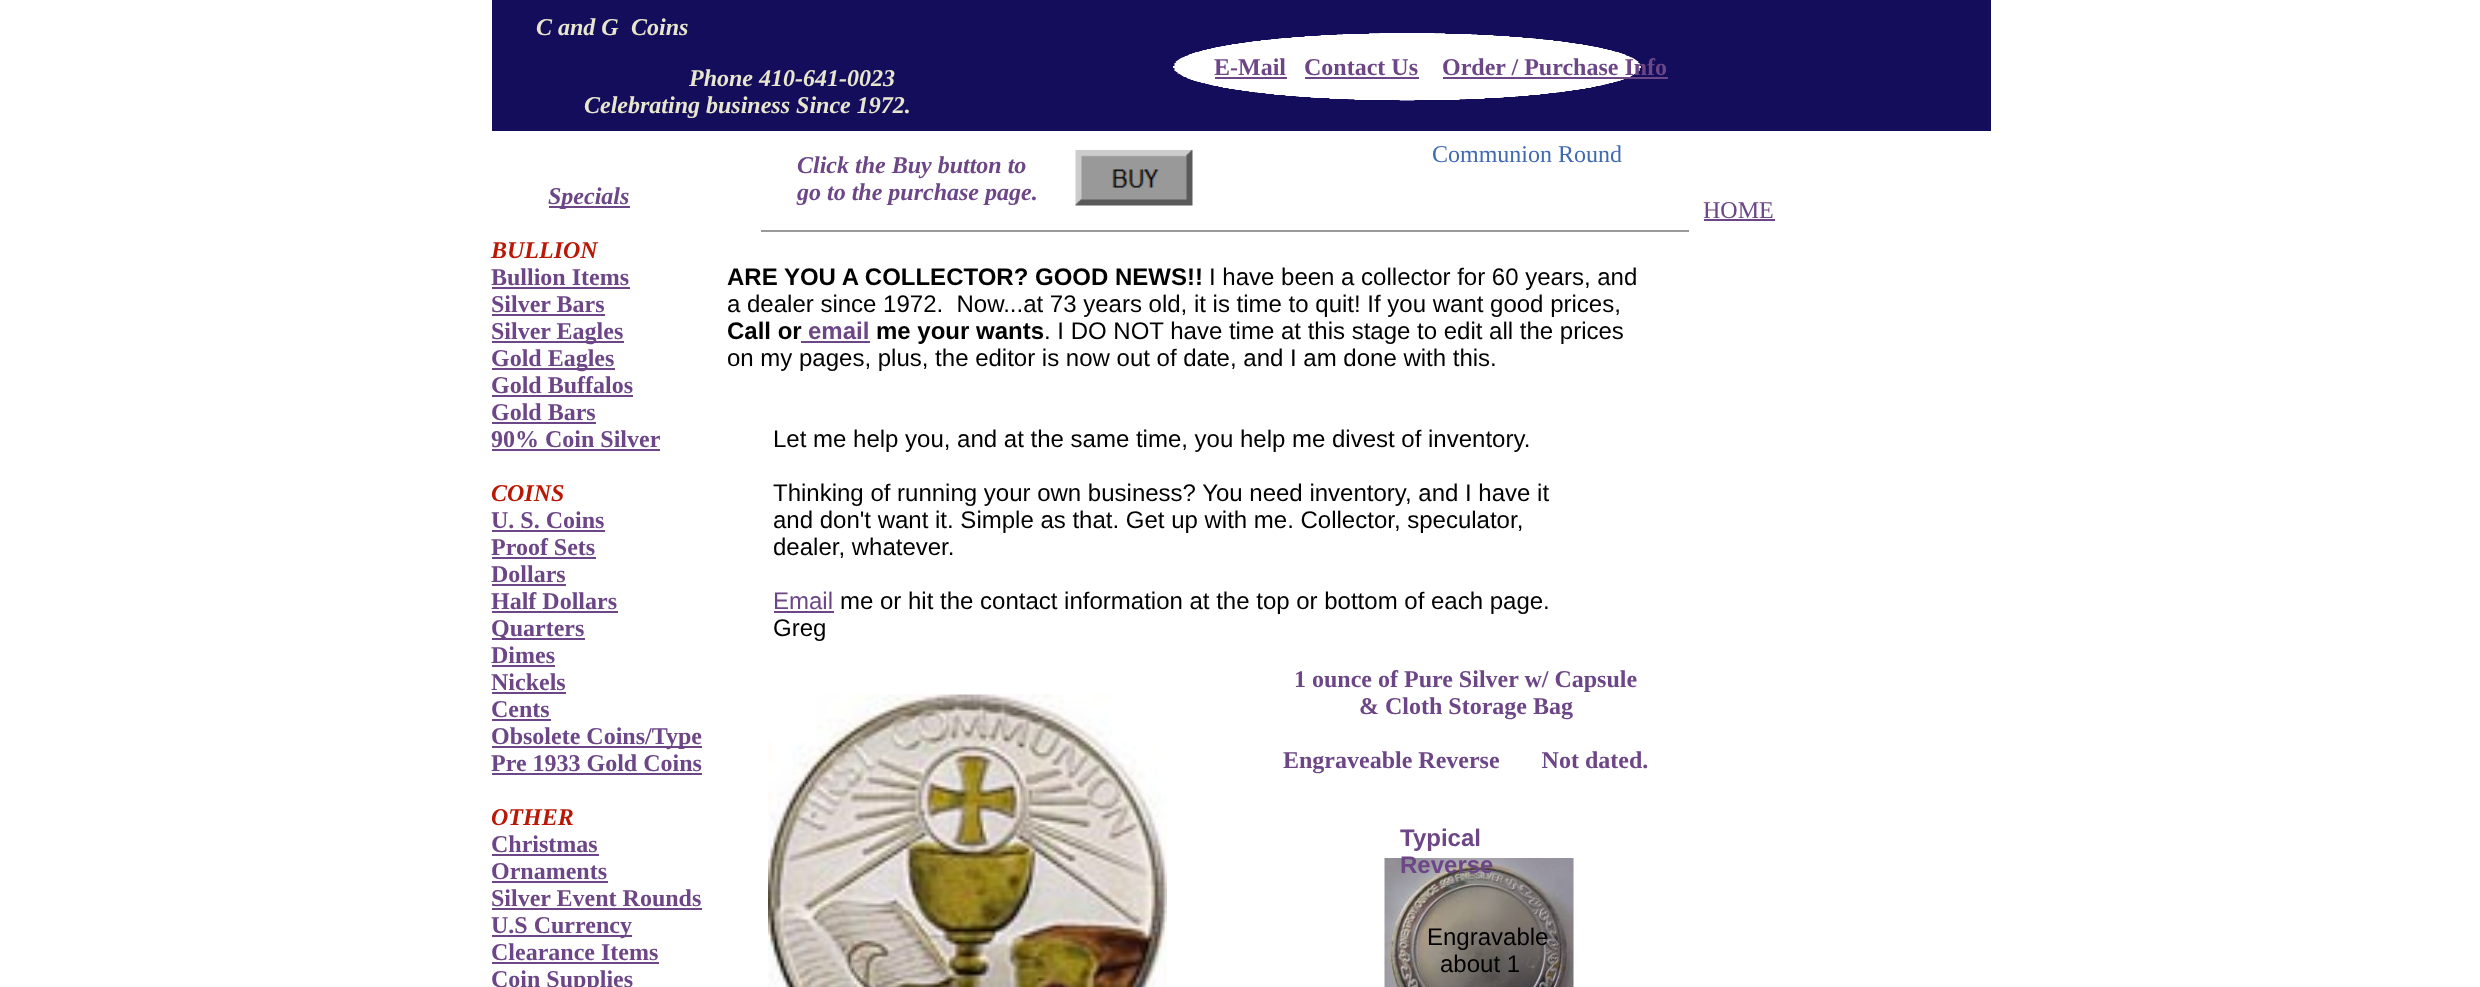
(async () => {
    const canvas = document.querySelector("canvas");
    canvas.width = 2480;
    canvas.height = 987;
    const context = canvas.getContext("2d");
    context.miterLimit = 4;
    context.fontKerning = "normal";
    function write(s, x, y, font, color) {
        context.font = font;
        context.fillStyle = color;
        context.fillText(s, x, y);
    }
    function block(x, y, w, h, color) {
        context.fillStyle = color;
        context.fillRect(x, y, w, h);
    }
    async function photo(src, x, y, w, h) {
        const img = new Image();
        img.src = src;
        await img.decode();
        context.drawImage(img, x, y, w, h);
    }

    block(0, 0, 2480, 987, "rgb(255, 255, 255)");
    block(492, 0, 1499, 131, "rgb(20, 13, 91)");
    write("C and G", 536, 35, "italic bold 24px Liberation Serif", "rgb(232, 231, 206)");
    write("Coins", 631, 35, "italic bold 24px Liberation Serif", "rgb(232, 231, 206)");
    write("Phone 410-641-0023", 689, 86, "italic bold 24px Liberation Serif", "rgb(232, 231, 206)");
    write("Celebrating business Since 1972.", 584, 113, "italic bold 24px Liberation Serif", "rgb(232, 231, 206)");
    await photo("media/1.png", 1173, 33, 468, 68);
    write("E-Mail", 1214, 75, "bold 24px Liberation Serif", "rgb(108, 70, 135)");
    block(1215, 77, 72, 2, "rgb(108, 70, 135)");
    write("Contact Us", 1304, 75, "bold 24px Liberation Serif", "rgb(108, 70, 135)");
    block(1305, 77, 114, 2, "rgb(108, 70, 135)");
    write("Order / Purchase Info", 1442, 75, "bold 24px Liberation Serif", "rgb(108, 70, 135)");
    block(1443, 77, 225, 2, "rgb(108, 70, 135)");
    write("Click the Buy button to", 797, 173, "italic bold 24px Liberation Serif", "rgb(108, 70, 135)");
    write("go to the purchase page.", 797, 200, "italic bold 24px Liberation Serif", "rgb(108, 70, 135)");
    await photo("media/2.png", 1075, 150, 118, 56);
    write("Communion Round", 1432, 162, "24px Liberation Serif", "rgb(64, 106, 176)");
    block(549, 206, 81, 2, "rgb(108, 70, 135)");
    write("Specials", 548, 204, "italic bold 24px Liberation Serif", "rgb(108, 70, 135)");
    write("BULLION", 491, 258, "italic bold 24px Liberation Serif", "rgb(185, 24, 6)");
    write("Bullion Items", 491, 285, "bold 24px Liberation Serif", "rgb(108, 70, 135)");
    block(492, 287, 138, 2, "rgb(108, 70, 135)");
    write("Silver Bars", 491, 312, "bold 24px Liberation Serif", "rgb(108, 70, 135)");
    block(492, 314, 113, 2, "rgb(108, 70, 135)");
    block(492, 341, 132, 2, "rgb(108, 70, 135)");
    write("Silver Eagles", 491, 339, "bold 24px Liberation Serif", "rgb(108, 70, 135)");
    block(492, 368, 123, 2, "rgb(108, 70, 135)");
    write("Gold Eagles", 491, 366, "bold 24px Liberation Serif", "rgb(108, 70, 135)");
    write("Gold Buffalos", 491, 393, "bold 24px Liberation Serif", "rgb(108, 70, 135)");
    block(492, 395, 141, 2, "rgb(108, 70, 135)");
    write("Gold Bars", 491, 420, "bold 24px Liberation Serif", "rgb(108, 70, 135)");
    block(492, 422, 104, 2, "rgb(108, 70, 135)");
    write("90% Coin Silver", 491, 447, "bold 24px Liberation Serif", "rgb(108, 70, 135)");
    block(492, 449, 168, 2, "rgb(108, 70, 135)");
    write("COINS", 491, 501, "italic bold 24px Liberation Serif", "rgb(185, 24, 6)");
    write("U. S. Coins", 491, 528, "bold 24px Liberation Serif", "rgb(108, 70, 135)");
    block(492, 530, 113, 2, "rgb(108, 70, 135)");
    write("Proof Sets", 491, 555, "bold 24px Liberation Serif", "rgb(108, 70, 135)");
    block(492, 557, 104, 2, "rgb(108, 70, 135)");
    write("Dollars", 491, 582, "bold 24px Liberation Serif", "rgb(108, 70, 135)");
    block(492, 584, 74, 2, "rgb(108, 70, 135)");
    write("Half Dollars", 491, 609, "bold 24px Liberation Serif", "rgb(108, 70, 135)");
    block(492, 611, 126, 2, "rgb(108, 70, 135)");
    block(492, 638, 93, 2, "rgb(108, 70, 135)");
    write("Quarters", 491, 636, "bold 24px Liberation Serif", "rgb(108, 70, 135)");
    write("Dimes", 491, 663, "bold 24px Liberation Serif", "rgb(108, 70, 135)");
    block(492, 665, 63, 2, "rgb(108, 70, 135)");
    write("Nickels", 491, 690, "bold 24px Liberation Serif", "rgb(108, 70, 135)");
    block(492, 692, 74, 2, "rgb(108, 70, 135)");
    write("Cents", 491, 717, "bold 24px Liberation Serif", "rgb(108, 70, 135)");
    block(492, 719, 59, 2, "rgb(108, 70, 135)");
    block(492, 746, 210, 2, "rgb(108, 70, 135)");
    write("Obsolete Coins/Type", 491, 744, "bold 24px Liberation Serif", "rgb(108, 70, 135)");
    write("Pre 1933 Gold Coins", 491, 771, "bold 24px Liberation Serif", "rgb(108, 70, 135)");
    block(492, 773, 210, 2, "rgb(108, 70, 135)");
    write("OTHER", 491, 825, "italic bold 24px Liberation Serif", "rgb(185, 24, 6)");
    write("Christmas", 491, 852, "bold 24px Liberation Serif", "rgb(108, 70, 135)");
    block(492, 854, 107, 2, "rgb(108, 70, 135)");
    write("Ornaments", 491, 879, "bold 24px Liberation Serif", "rgb(108, 70, 135)");
    block(492, 881, 116, 2, "rgb(108, 70, 135)");
    write("Silver Event Rounds", 491, 906, "bold 24px Liberation Serif", "rgb(108, 70, 135)");
    block(492, 908, 210, 2, "rgb(108, 70, 135)");
    block(492, 935, 140, 2, "rgb(108, 70, 135)");
    write("U.S Currency", 491, 933, "bold 24px Liberation Serif", "rgb(108, 70, 135)");
    write("Clearance Items", 491, 960, "bold 24px Liberation Serif", "rgb(108, 70, 135)");
    block(492, 962, 167, 2, "rgb(108, 70, 135)");
    write("Coin Supplies", 491, 987, "bold 24px Liberation Serif", "rgb(108, 70, 135)");
    write("HOME", 1703, 218, "24px Liberation Serif", "rgb(108, 70, 135)");
    block(1704, 219, 71, 2, "rgb(108, 70, 135)");
    block(761, 230, 928, 2, "rgb(153, 153, 153)");
    write("ARE YOU A COLLECTOR? GOOD NEWS!!", 727, 285, "bold 24px Liberation Sans", "rgb(0, 0, 0)");
    write("I have been a collector for 60 years, and", 1209, 285, "24px Liberation Sans", "rgb(0, 0, 0)");
    write("a dealer since 1972.  Now...at 73 years old, it is time to quit! If you want good prices,", 727, 312, "24px Liberation Sans", "rgb(0, 0, 0)");
    write("Call or", 727, 339, "bold 24px Liberation Sans", "rgb(0, 0, 0)");
    write("email", 808, 339, "bold 24px Liberation Sans", "rgb(108, 70, 135)");
    block(801, 341, 69, 2, "rgb(108, 70, 135)");
    write("me your wants", 876, 339, "bold 24px Liberation Sans", "rgb(0, 0, 0)");
    write(". I DO NOT have time at this stage to edit all the prices", 1044, 339, "24px Liberation Sans", "rgb(0, 0, 0)");
    write("on my pages, plus, the editor is now out of date, and I am done with this.", 727, 366, "24px Liberation Sans", "rgb(0, 0, 0)");
    write("Let me help you, and at the same time, you help me divest of inventory.", 773, 447, "24px Liberation Sans", "rgb(0, 0, 0)");
    write("Thinking of running your own business? You need inventory, and I have it", 773, 501, "24px Liberation Sans", "rgb(0, 0, 0)");
    write("and don't want it. Simple as that. Get up with me. Collector, speculator,", 773, 528, "24px Liberation Sans", "rgb(0, 0, 0)");
    write("dealer, whatever.", 773, 555, "24px Liberation Sans", "rgb(0, 0, 0)");
    write("Email", 773, 609, "24px Liberation Sans", "rgb(108, 70, 135)");
    block(774, 611, 60, 2, "rgb(108, 70, 135)");
    write("me or hit the contact information at the top or bottom of each page.", 840, 609, "24px Liberation Sans", "rgb(0, 0, 0)");
    write("Greg", 773, 636, "24px Liberation Sans", "rgb(0, 0, 0)");
    await photo("media/3.png", 768, 694, 399, 293);
    write("1 ounce of Pure Silver w/ Capsule", 1294, 687, "bold 24px Liberation Serif", "rgb(108, 70, 135)");
    write("& Cloth Storage Bag", 1359, 714, "bold 24px Liberation Serif", "rgb(108, 70, 135)");
    write("Engraveable Reverse       Not dated.", 1283, 768, "bold 24px Liberation Serif", "rgb(108, 70, 135)");
    write("Typical", 1400, 846, "bold 24px Liberation Sans", "rgb(108, 70, 135)");
    await photo("media/4.png", 1384, 858, 190, 129);
    write("Reverse", 1400, 873, "bold 24px Liberation Sans", "rgb(108, 70, 135)");
    write("Engravable", 1427, 945, "24px Liberation Sans", "rgb(0, 0, 0)");
    write("about 1", 1440, 972, "24px Liberation Sans", "rgb(0, 0, 0)");
})();
